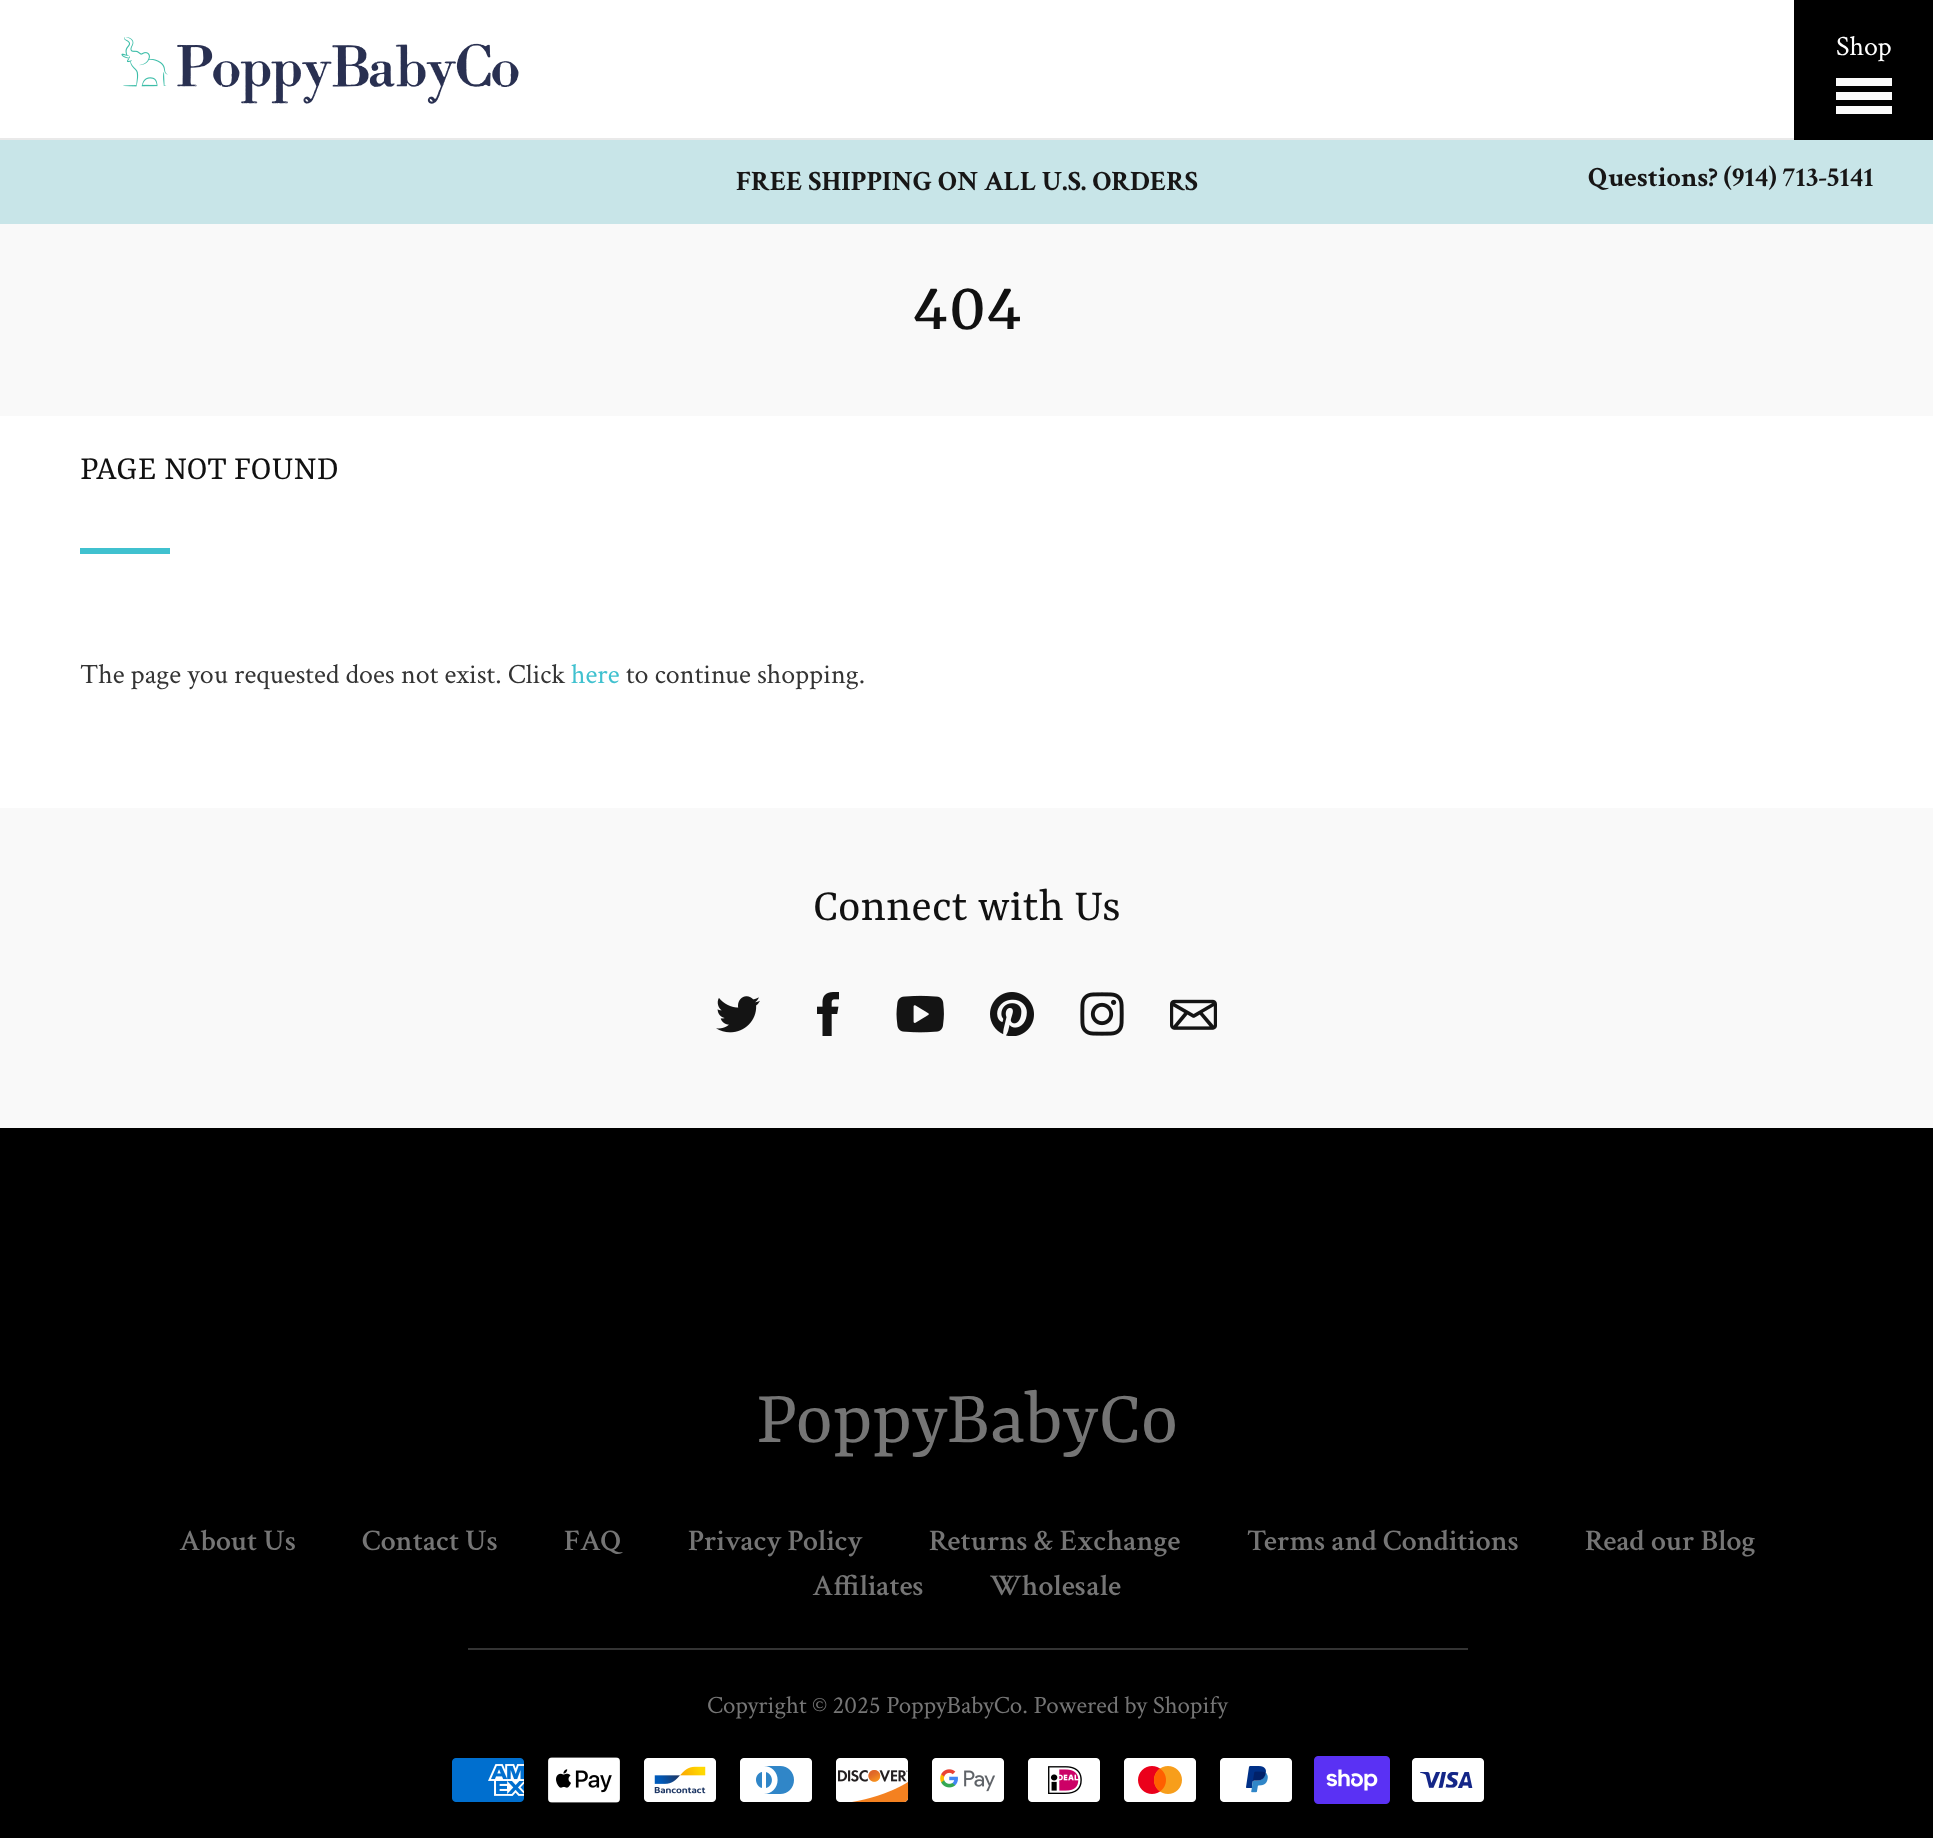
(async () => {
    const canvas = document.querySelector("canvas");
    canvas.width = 1933;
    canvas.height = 1838;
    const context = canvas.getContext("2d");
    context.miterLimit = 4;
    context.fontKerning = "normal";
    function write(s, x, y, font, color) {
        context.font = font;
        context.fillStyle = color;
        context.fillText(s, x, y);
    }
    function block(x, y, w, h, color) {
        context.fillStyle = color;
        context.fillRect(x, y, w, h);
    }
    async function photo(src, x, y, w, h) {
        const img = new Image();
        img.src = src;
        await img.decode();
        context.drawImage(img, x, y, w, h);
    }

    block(0, 0, 1933, 1838, "rgb(255, 255, 255)");
    block(0, 138, 1794, 2, "rgb(233, 233, 233)");
    await photo("media/1.png", 121, 37, 398, 67);
    block(1794, 0, 139, 140, "rgb(0, 0, 0)");
    write("Shop", 1836, 55, "28px Crimson Text", "rgb(255, 255, 255)");
    block(1836, 92, 56, 8, "rgb(250, 250, 250)");
    block(1836, 78, 56, 8, "rgb(250, 250, 250)");
    block(1836, 106, 56, 8, "rgb(250, 250, 250)");
    block(0, 140, 1933, 84, "rgb(200, 229, 232)");
    write("FREE SHIPPING ON ALL U.S. ORDERS", 736, 190, "bold 28px Crimson Text", "rgb(23, 22, 22)");
    write("Questions? (914) 713-5141", 1588, 186, "bold 28px Crimson Text", "rgb(23, 22, 22)");
    block(0, 224, 1933, 192, "rgb(249, 249, 249)");
    write("404", 913, 329, "80px Yrsa", "rgb(17, 17, 17)");
    write("PAGE NOT FOUND", 80, 479, "36px Yrsa", "rgb(17, 17, 17)");
    block(80, 548, 90, 6, "rgb(64, 193, 207)");
    write("The page you requested does not exist. Click", 80, 683, "28px Crimson Text", "rgb(52, 52, 52)");
    write("here", 571, 683, "28px Crimson Text", "rgb(64, 193, 207)");
    write("to continue shopping.", 626, 683, "28px Crimson Text", "rgb(52, 52, 52)");
    block(0, 808, 1933, 320, "rgb(249, 249, 249)");
    write("Connect with Us", 813, 920, "48px Yrsa", "rgb(17, 17, 17)");
    await photo("media/2.png", 716, 996, 44, 37);
    await photo("media/3.png", 817, 992, 22, 44);
    await photo("media/4.png", 896, 995, 48, 38);
    await photo("media/5.png", 990, 992, 44, 44);
    await photo("media/6.png", 1080, 992, 44, 44);
    await photo("media/7.png", 1170, 999, 47, 31);
    block(0, 1128, 1933, 710, "rgb(0, 0, 0)");
    write("PoppyBabyCo", 756, 1442, "80px Yrsa", "rgb(117, 117, 117)");
    write("About Us", 179, 1550, "600 30px Crimson Text", "rgb(117, 117, 117)");
    write("Contact Us", 362, 1550, "600 30px Crimson Text", "rgb(117, 117, 117)");
    write("FAQ", 564, 1550, "600 30px Crimson Text", "rgb(117, 117, 117)");
    write("Privacy Policy", 688, 1550, "600 30px Crimson Text", "rgb(117, 117, 117)");
    write("Returns & Exchange", 929, 1550, "600 30px Crimson Text", "rgb(117, 117, 117)");
    write("Terms and Conditions", 1247, 1550, "600 30px Crimson Text", "rgb(117, 117, 117)");
    write("Read our Blog", 1585, 1550, "600 30px Crimson Text", "rgb(117, 117, 117)");
    write("Affiliates", 812, 1595, "600 30px Crimson Text", "rgb(117, 117, 117)");
    write("Wholesale", 990, 1595, "600 30px Crimson Text", "rgb(117, 117, 117)");
    block(468, 1648, 1000, 2, "rgb(51, 51, 51)");
    write("Copyright © 2025 PoppyBabyCo. Powered by Shopify", 707, 1713, "25px Crimson Text", "rgb(117, 117, 117)");
    await photo("media/8.png", 452, 1758, 72, 44);
    await photo("media/9.png", 548, 1757, 72, 46);
    await photo("media/10.png", 644, 1758, 72, 44);
    await photo("media/11.png", 740, 1758, 72, 44);
    await photo("media/12.png", 836, 1758, 73, 44);
    await photo("media/13.png", 932, 1758, 72, 44);
    await photo("media/14.png", 1028, 1758, 72, 44);
    await photo("media/15.png", 1124, 1758, 72, 44);
    await photo("media/16.png", 1220, 1758, 72, 44);
    await photo("media/17.png", 1314, 1756, 76, 48);
    await photo("media/18.png", 1412, 1758, 72, 44);
})();
